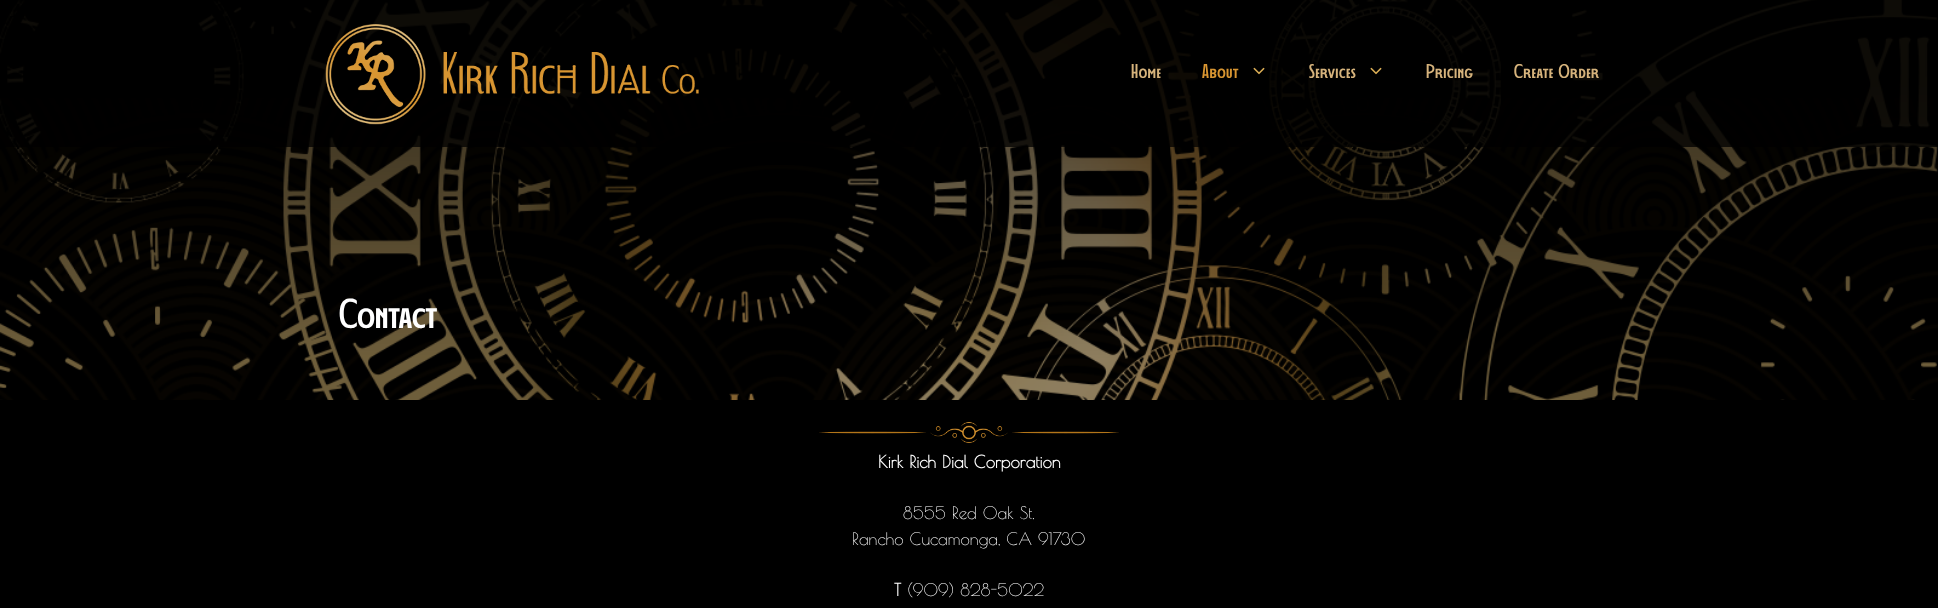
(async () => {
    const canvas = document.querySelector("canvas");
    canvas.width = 1938;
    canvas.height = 608;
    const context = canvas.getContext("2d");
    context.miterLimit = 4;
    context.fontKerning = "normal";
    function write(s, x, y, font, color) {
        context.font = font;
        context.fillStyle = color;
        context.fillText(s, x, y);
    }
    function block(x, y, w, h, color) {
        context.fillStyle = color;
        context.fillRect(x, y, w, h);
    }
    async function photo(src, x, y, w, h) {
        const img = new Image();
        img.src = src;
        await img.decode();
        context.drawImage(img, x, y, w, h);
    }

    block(0, 0, 1938, 608, "rgb(0, 0, 0)");
    await photo("media/4.png", 0, 0, 1938, 400);
    block(0, 0, 1938, 147, "rgba(0, 0, 0, 0.75)");
    await photo("media/1.png", 325, 24, 374, 101);
    context.letterSpacing = "0.5px";
    write("Home", 1131, 78, "20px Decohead", "rgb(214, 179, 124)");
    write("About", 1202, 78, "20px Decohead", "rgb(216, 149, 49)");
    await photo("media/2.png", 1253, 67, 12, 8);
    write("Services", 1309, 78, "20px Decohead", "rgb(214, 179, 124)");
    await photo("media/3.png", 1370, 67, 12, 8);
    write("Pricing", 1426, 78, "20px Decohead", "rgb(214, 179, 124)");
    write("Create Order", 1514, 78, "20px Decohead", "rgb(214, 179, 124)");
    context.letterSpacing = "0px";
    write("Contact", 339, 328, "42px Decohead", "rgb(255, 255, 255)");
    await photo("media/5.png", 819, 422, 300, 21);
    write("Kirk Rich Dial Corporation", 878, 468, "bold 17px Poiret One", "rgb(255, 255, 255)");
    write("8555 Red Oak St.", 903, 519, "17px Poiret One", "rgb(255, 255, 255)");
    write("Rancho Cucamonga, CA 91730", 852, 545, "17px Poiret One", "rgb(255, 255, 255)");
    write("T", 894, 596, "bold 17px Poiret One", "rgb(255, 255, 255)");
    write("(909) 828-5022", 907, 596, "17px Poiret One", "rgb(255, 255, 255)");
})();
